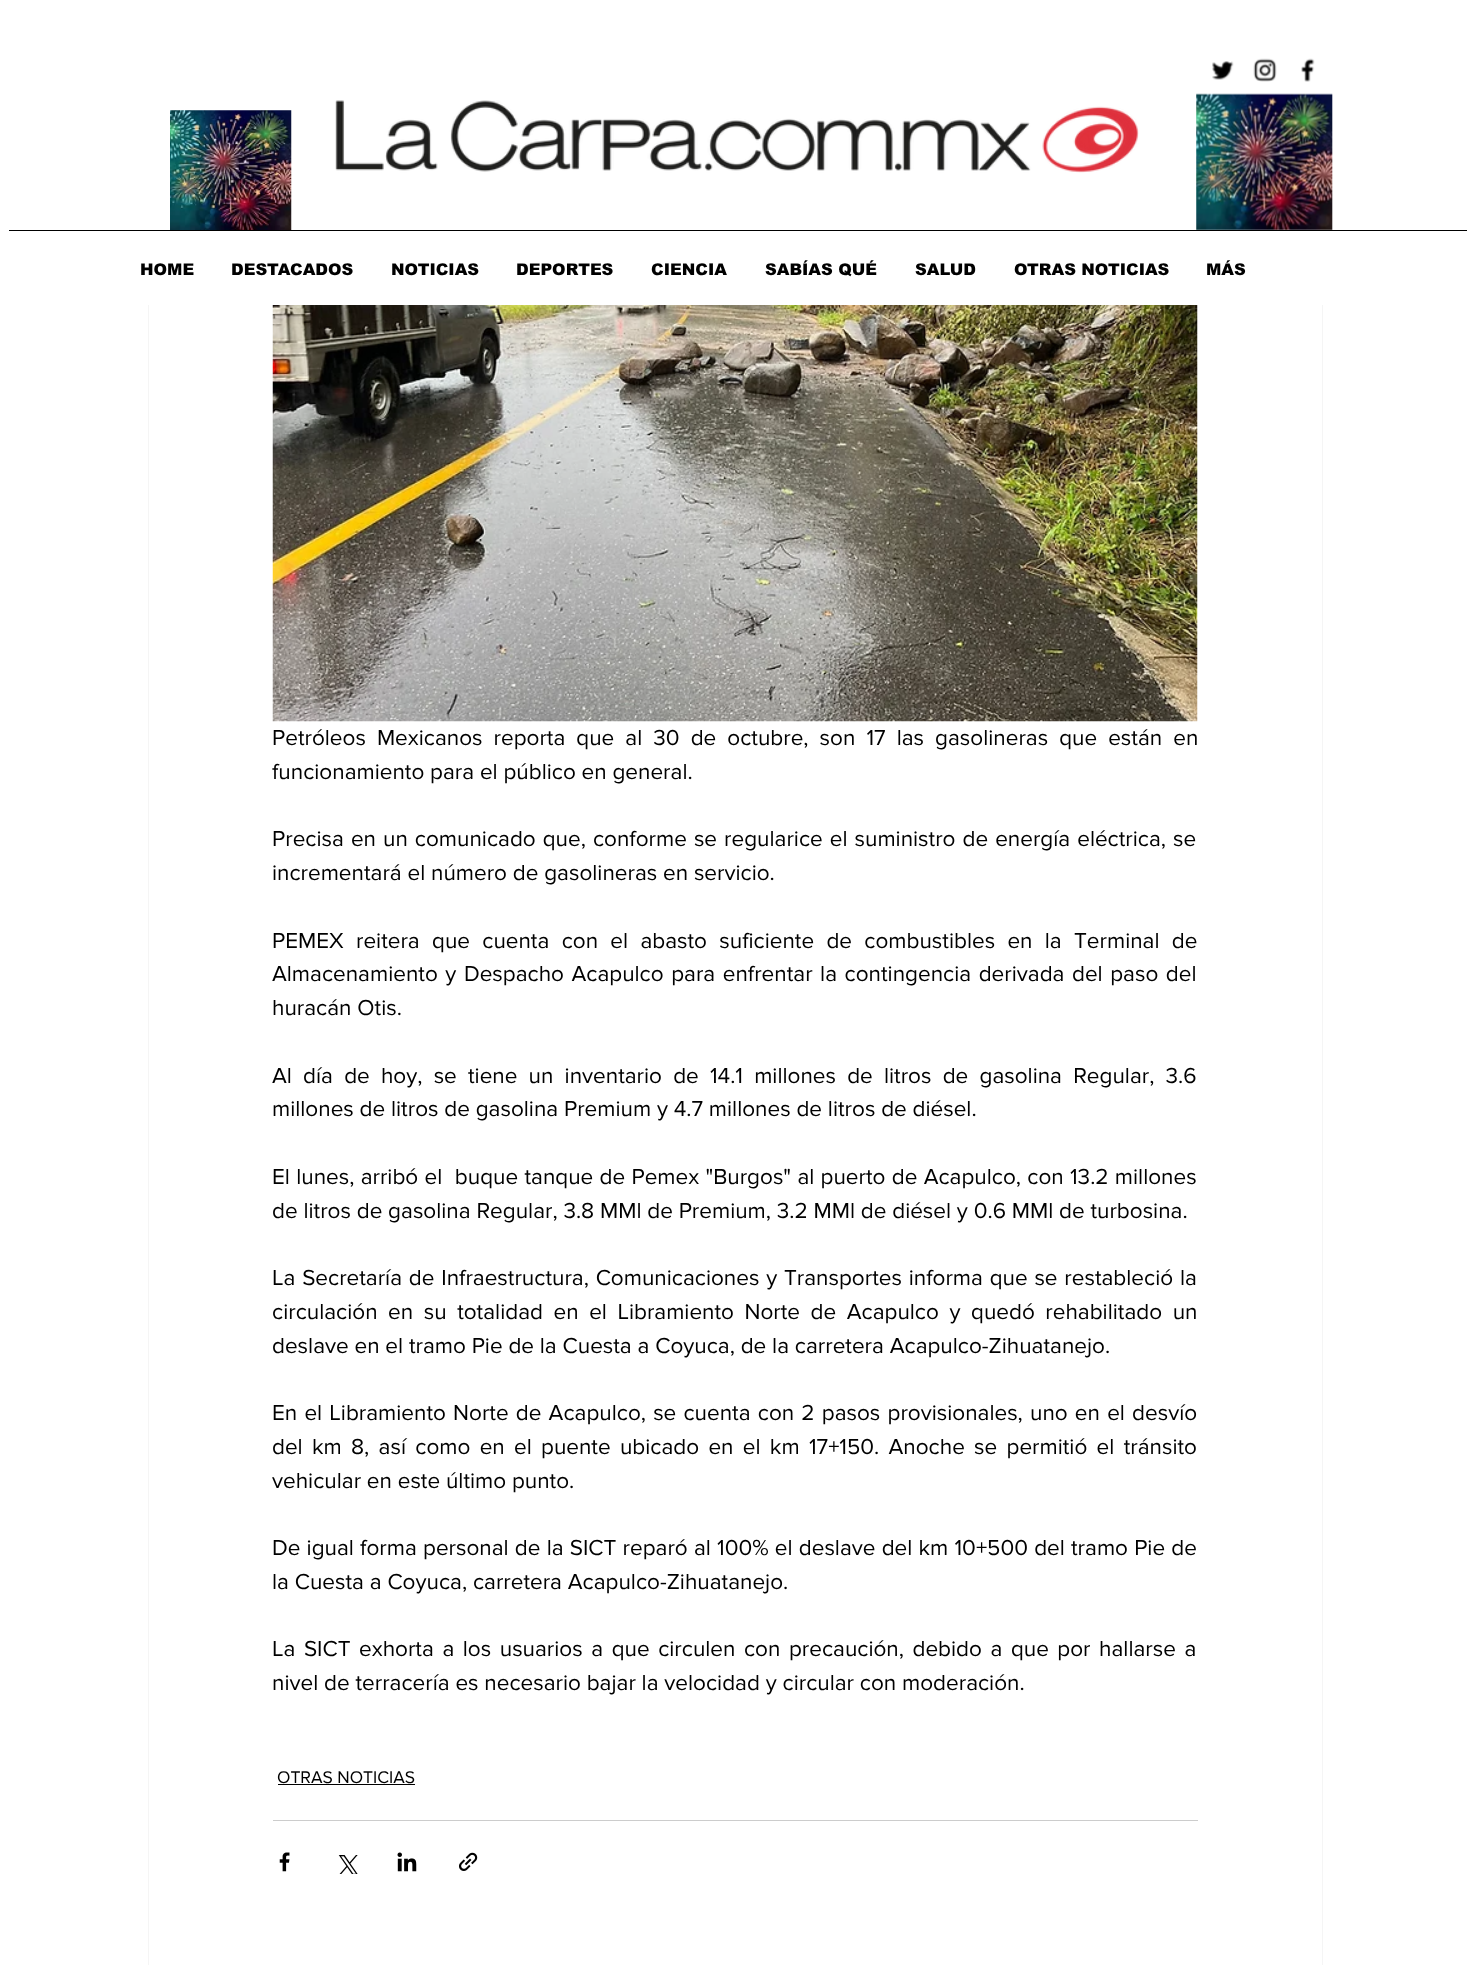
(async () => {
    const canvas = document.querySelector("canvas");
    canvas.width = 1467;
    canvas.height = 1965;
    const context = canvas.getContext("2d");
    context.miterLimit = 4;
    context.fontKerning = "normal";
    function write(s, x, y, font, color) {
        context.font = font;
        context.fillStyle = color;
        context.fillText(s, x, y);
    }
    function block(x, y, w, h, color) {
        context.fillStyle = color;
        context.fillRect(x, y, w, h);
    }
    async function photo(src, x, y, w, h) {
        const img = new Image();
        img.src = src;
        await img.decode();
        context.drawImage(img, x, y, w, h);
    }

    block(0, 0, 1467, 1965, "rgb(255, 255, 255)");
    context.strokeStyle = "rgb(245, 245, 245)";
    context.strokeRect(148.5, -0.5, 1174, 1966);
    block(148, 0, 1175, 305, "rgb(255, 255, 255)");
    await photo("media/1.png", 1212, 61, 22, 19);
    await photo("media/2.png", 1253, 58, 24, 24);
    await photo("media/3.png", 1301, 58, 14, 24);
    await photo("media/4.png", 170, 110, 122, 120);
    await photo("media/5.png", 335, 100, 804, 73);
    await photo("media/6.png", 1196, 93, 137, 137);
    block(9, 230, 1458, 1, "rgb(0, 0, 0)");
    write("HOME", 140, 275, "900 16.25px arial", "rgb(0, 0, 0)");
    write("DESTACADOS", 231, 275, "900 16.25px arial", "rgb(0, 0, 0)");
    write("NOTICIAS", 391, 275, "900 16.25px arial", "rgb(0, 0, 0)");
    write("DEPORTES", 516, 275, "900 16.25px arial", "rgb(0, 0, 0)");
    write("CIENCIA", 651, 275, "900 16.25px arial", "rgb(0, 0, 0)");
    write("SABÍAS QUÉ", 765, 275, "900 16.25px arial", "rgb(0, 0, 0)");
    write("SALUD", 915, 275, "900 16.25px arial", "rgb(0, 0, 0)");
    write("OTRAS NOTICIAS", 1014, 275, "900 16.25px arial", "rgb(0, 0, 0)");
    write("MÁS", 1206, 275, "900 16.25px arial", "rgb(0, 0, 0)");
    await photo("media/7.png", 272, 305, 926, 417);
    context.wordSpacing = "5.25px";
    write("Petróleos Mexicanos reporta que al 30 de octubre, son 17 las gasolineras que están en", 272, 745, "22.5px 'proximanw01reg'", "rgb(0, 0, 0)");
    context.wordSpacing = "0px";
    write("funcionamiento para el público en general.", 272, 779, "22.5px 'proximanw01reg'", "rgb(0, 0, 0)");
    context.wordSpacing = "1.25px";
    write("Precisa en un comunicado que, conforme se regularice el suministro de energía eléctrica, se", 272, 846, "22.5px 'proximanw01reg'", "rgb(0, 0, 0)");
    context.wordSpacing = "0px";
    write("incrementará el número de gasolineras en servicio.", 272, 880, "22.5px 'proximanw01reg'", "rgb(0, 0, 0)");
    context.wordSpacing = "6.5px";
    write("PEMEX reitera que cuenta con el abasto suficiente de combustibles en la Terminal de", 272, 948, "22.5px 'proximanw01reg'", "rgb(0, 0, 0)");
    context.wordSpacing = "1.75px";
    write("Almacenamiento y Despacho Acapulco para enfrentar la contingencia derivada del paso del", 272, 981, "22.5px 'proximanw01reg'", "rgb(0, 0, 0)");
    context.wordSpacing = "0px";
    write("huracán Otis.", 272, 1015, "22.5px 'proximanw01reg'", "rgb(0, 0, 0)");
    context.wordSpacing = "5.4px";
    write("Al día de hoy, se tiene un inventario de 14.1 millones de litros de gasolina Regular, 3.6", 272, 1083, "22.5px 'proximanw01reg'", "rgb(0, 0, 0)");
    context.wordSpacing = "0px";
    write("millones de litros de gasolina Premium y 4.7 millones de litros de diésel.", 272, 1116, "22.5px 'proximanw01reg'", "rgb(0, 0, 0)");
    context.wordSpacing = "0.5px";
    write("El lunes, arribó el  buque tanque de Pemex \"Burgos\" al puerto de Acapulco, con 13.2 millones", 272, 1184, "22.5px 'proximanw01reg'", "rgb(0, 0, 0)");
    context.wordSpacing = "0px";
    write("de litros de gasolina Regular, 3.8 MMl de Premium, 3.2 MMl de diésel y 0.6 MMl de turbosina.", 272, 1218, "22.5px 'proximanw01reg'", "rgb(0, 0, 0)");
    context.wordSpacing = "1px";
    write("La Secretaría de Infraestructura, Comunicaciones y Transportes informa que se restableció la", 272, 1285, "22.5px 'proximanw01reg'", "rgb(0, 0, 0)");
    context.wordSpacing = "4.75px";
    write("circulación en su totalidad en el Libramiento Norte de Acapulco y quedó rehabilitado un", 272, 1319, "22.5px 'proximanw01reg'", "rgb(0, 0, 0)");
    context.wordSpacing = "0px";
    write("deslave en el tramo Pie de la Cuesta a Coyuca, de la carretera Acapulco-Zihuatanejo.", 272, 1353, "22.5px 'proximanw01reg'", "rgb(0, 0, 0)");
    context.wordSpacing = "1.4px";
    write("En el Libramiento Norte de Acapulco, se cuenta con 2 pasos provisionales, uno en el desvío", 272, 1420, "22.5px 'proximanw01reg'", "rgb(0, 0, 0)");
    context.wordSpacing = "3.5px";
    write("del km 8, así como en el puente ubicado en el km 17+150. Anoche se permitió el tránsito", 272, 1454, "22.5px 'proximanw01reg'", "rgb(0, 0, 0)");
    context.wordSpacing = "0px";
    write("vehicular en este último punto.", 272, 1488, "22.5px 'proximanw01reg'", "rgb(0, 0, 0)");
    context.wordSpacing = "0.4px";
    write("De igual forma personal de la SICT reparó al 100% el deslave del km 10+500 del tramo Pie de", 272, 1555, "22.5px 'proximanw01reg'", "rgb(0, 0, 0)");
    context.wordSpacing = "0px";
    write("la Cuesta a Coyuca, carretera Acapulco-Zihuatanejo.", 272, 1589, "22.5px 'proximanw01reg'", "rgb(0, 0, 0)");
    context.wordSpacing = "2.75px";
    write("La SICT exhorta a los usuarios a que circulen con precaución, debido a que por hallarse a", 272, 1656, "22.5px 'proximanw01reg'", "rgb(0, 0, 0)");
    context.wordSpacing = "0px";
    write("nivel de terracería es necesario bajar la velocidad y circular con moderación.", 272, 1690, "22.5px 'proximanw01reg'", "rgb(0, 0, 0)");
    write("OTRAS NOTICIAS", 277, 1783, "17.5px 'proximanw01reg'", "rgb(0, 0, 0)");
    block(278, 1784, 137, 1, "rgb(0, 0, 0)");
    block(273, 1820, 925, 1, "rgb(204, 204, 204)");
    await photo("media/8.png", 279, 1852, 11, 20);
    await photo("media/9.png", 338, 1855, 20, 19);
    await photo("media/10.png", 397, 1852, 20, 20);
    await photo("media/11.png", 459, 1852, 19, 19);
})();
